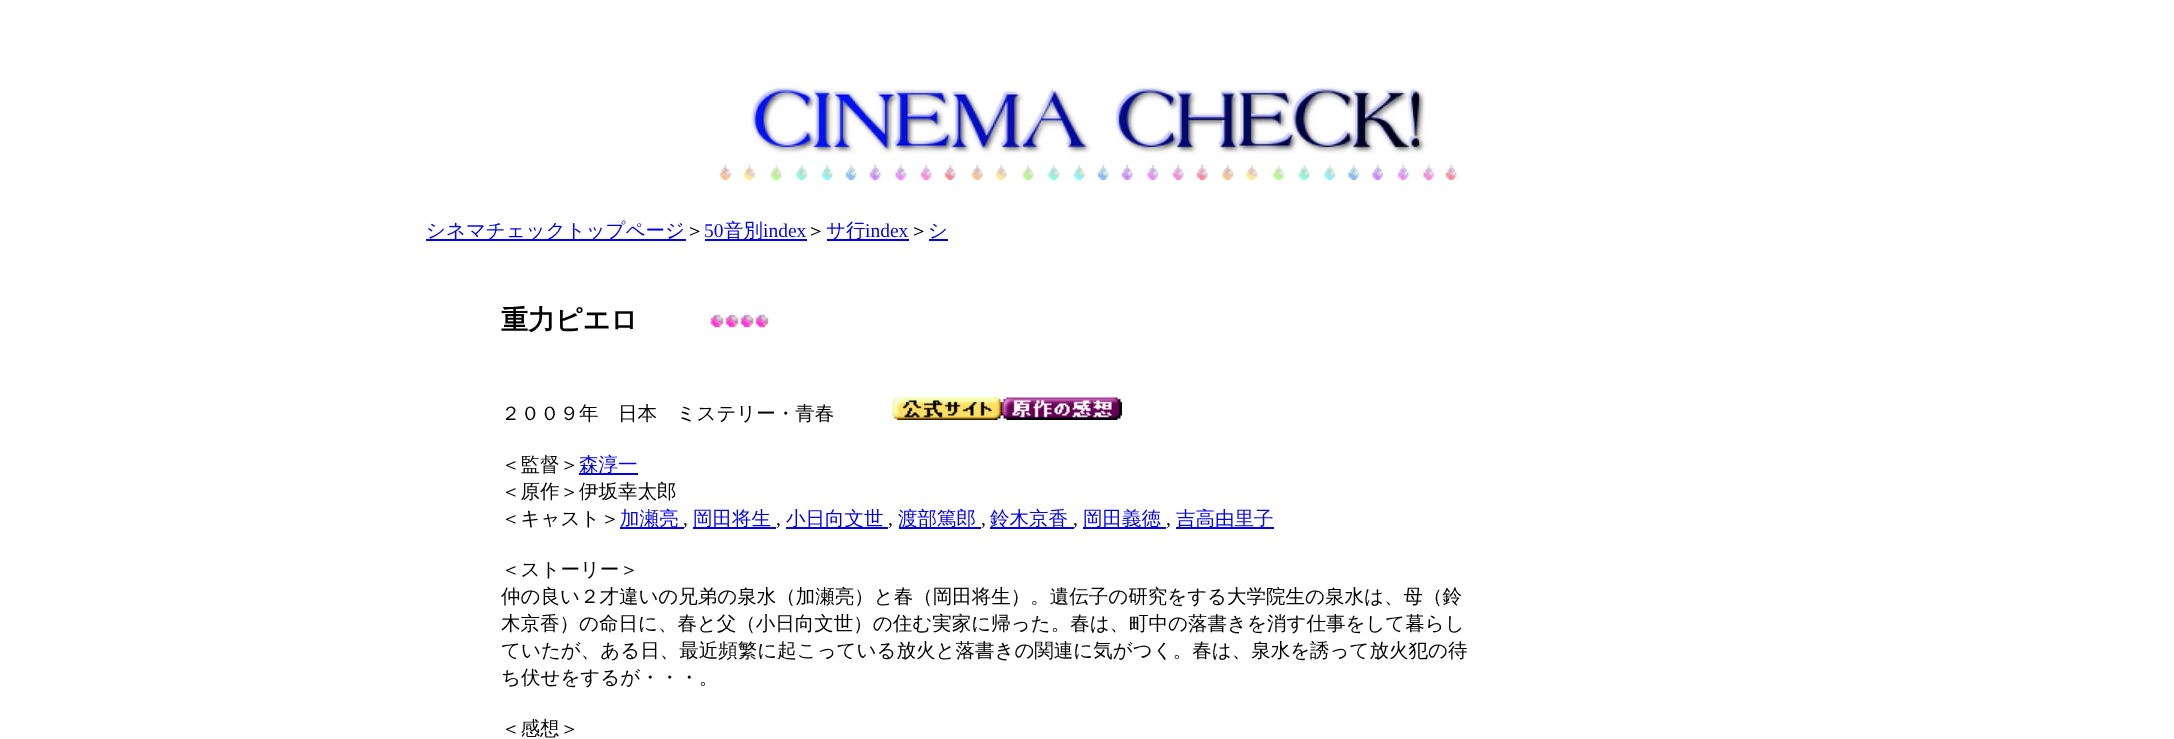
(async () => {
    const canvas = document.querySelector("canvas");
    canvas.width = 2174;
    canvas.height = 739;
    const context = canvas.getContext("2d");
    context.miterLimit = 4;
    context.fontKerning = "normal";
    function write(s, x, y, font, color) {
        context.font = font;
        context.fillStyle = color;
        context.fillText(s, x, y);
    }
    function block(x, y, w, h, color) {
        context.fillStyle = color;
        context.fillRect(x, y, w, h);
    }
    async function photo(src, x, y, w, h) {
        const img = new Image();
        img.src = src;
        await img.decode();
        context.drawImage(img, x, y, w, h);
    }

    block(0, 0, 2174, 739, "rgb(255, 255, 255)");
    await photo("media/1.png", 751, 87, 675, 67);
    await photo("media/2.png", 719, 165, 738, 15);
    block(426, 239, 260, 2, "rgb(0, 0, 238)");
    write("シネマチェックトップページ", 426, 237, "500 19.5px WenQuanYi Zen Hei", "rgb(0, 0, 238)");
    write("＞", 685, 237, "500 19.5px WenQuanYi Zen Hei", "rgb(0, 0, 0)");
    write("50", 704, 237, "19.5px Liberation Serif", "rgb(0, 0, 238)");
    block(705, 239, 102, 2, "rgb(0, 0, 238)");
    write("音別", 724, 237, "500 19.5px WenQuanYi Zen Hei", "rgb(0, 0, 238)");
    write("index", 763, 237, "19.5px Liberation Serif", "rgb(0, 0, 238)");
    write("＞", 806, 237, "500 19.5px WenQuanYi Zen Hei", "rgb(0, 0, 0)");
    block(827, 239, 82, 2, "rgb(0, 0, 238)");
    write("サ行", 826, 237, "500 19.5px WenQuanYi Zen Hei", "rgb(0, 0, 238)");
    write("index", 865, 237, "19.5px Liberation Serif", "rgb(0, 0, 238)");
    write("＞", 909, 237, "500 19.5px WenQuanYi Zen Hei", "rgb(0, 0, 0)");
    write("シ", 928, 237, "500 19.5px WenQuanYi Zen Hei", "rgb(0, 0, 238)");
    block(929, 239, 19, 2, "rgb(0, 0, 238)");
    write("重力ピエロ", 501, 329, "bold 27px WenQuanYi Zen Hei", "rgb(0, 0, 0)");
    await photo("media/3.png", 710, 314, 14, 14);
    await photo("media/3.png", 725, 314, 14, 14);
    await photo("media/3.png", 740, 314, 14, 14);
    await photo("media/4.png", 755, 314, 14, 14);
    write("２００９年　日本　ミステリー・青春", 501, 420, "500 19.5px WenQuanYi Zen Hei", "rgb(0, 0, 0)");
    await photo("media/5.png", 892, 397, 110, 23);
    await photo("media/6.png", 1002, 397, 120, 23);
    write("＜監督＞", 501, 471, "500 19.5px WenQuanYi Zen Hei", "rgb(0, 0, 0)");
    block(579, 473, 59, 2, "rgb(0, 0, 238)");
    write("森淳一", 579, 471, "500 19.5px WenQuanYi Zen Hei", "rgb(0, 0, 238)");
    write("＜原作＞伊坂幸太郎", 501, 498, "500 19.5px WenQuanYi Zen Hei", "rgb(0, 0, 0)");
    write("＜キャスト＞", 501, 525, "500 19.5px WenQuanYi Zen Hei", "rgb(0, 0, 0)");
    block(620, 527, 64, 2, "rgb(0, 0, 238)");
    write("加瀬亮", 620, 525, "500 19.5px WenQuanYi Zen Hei", "rgb(0, 0, 238)");
    write(",", 683, 525, "19.5px Liberation Serif", "rgb(0, 0, 0)");
    block(693, 527, 83, 2, "rgb(0, 0, 238)");
    write("岡田将生", 693, 525, "500 19.5px WenQuanYi Zen Hei", "rgb(0, 0, 238)");
    write(",", 776, 525, "19.5px Liberation Serif", "rgb(0, 0, 0)");
    block(786, 527, 102, 2, "rgb(0, 0, 238)");
    write("小日向文世", 786, 525, "500 19.5px WenQuanYi Zen Hei", "rgb(0, 0, 238)");
    write(",", 888, 525, "19.5px Liberation Serif", "rgb(0, 0, 0)");
    block(899, 527, 82, 2, "rgb(0, 0, 238)");
    write("渡部篤郎", 898, 525, "500 19.5px WenQuanYi Zen Hei", "rgb(0, 0, 238)");
    write(",", 981, 525, "19.5px Liberation Serif", "rgb(0, 0, 0)");
    block(990, 527, 84, 2, "rgb(0, 0, 238)");
    write("鈴木京香", 990, 525, "500 19.5px WenQuanYi Zen Hei", "rgb(0, 0, 238)");
    write(",", 1073, 525, "19.5px Liberation Serif", "rgb(0, 0, 0)");
    block(1083, 527, 83, 2, "rgb(0, 0, 238)");
    write("岡田義徳", 1083, 525, "500 19.5px WenQuanYi Zen Hei", "rgb(0, 0, 238)");
    write(",", 1166, 525, "19.5px Liberation Serif", "rgb(0, 0, 0)");
    block(1176, 527, 98, 2, "rgb(0, 0, 238)");
    write("吉高由里子", 1176, 525, "500 19.5px WenQuanYi Zen Hei", "rgb(0, 0, 238)");
    write("＜ストーリー＞", 501, 576, "500 19.5px WenQuanYi Zen Hei", "rgb(0, 0, 0)");
    write("仲の良い２才違いの兄弟の泉水（加瀬亮）と春（岡田将生）。遺伝子の研究をする大学院生の泉水は、母（鈴", 501, 603, "500 19.5px WenQuanYi Zen Hei", "rgb(0, 0, 0)");
    write("木京香）の命日に、春と父（小日向文世）の住む実家に帰った。春は、町中の落書きを消す仕事をして暮らし", 501, 630, "500 19.5px WenQuanYi Zen Hei", "rgb(0, 0, 0)");
    write("ていたが、ある日、最近頻繁に起こっている放火と落書きの関連に気がつく。春は、泉水を誘って放火犯の待", 501, 657, "500 19.5px WenQuanYi Zen Hei", "rgb(0, 0, 0)");
    write("ち伏せをするが・・・。", 501, 684, "500 19.5px WenQuanYi Zen Hei", "rgb(0, 0, 0)");
    write("＜感想＞", 501, 735, "500 19.5px WenQuanYi Zen Hei", "rgb(0, 0, 0)");
})();
